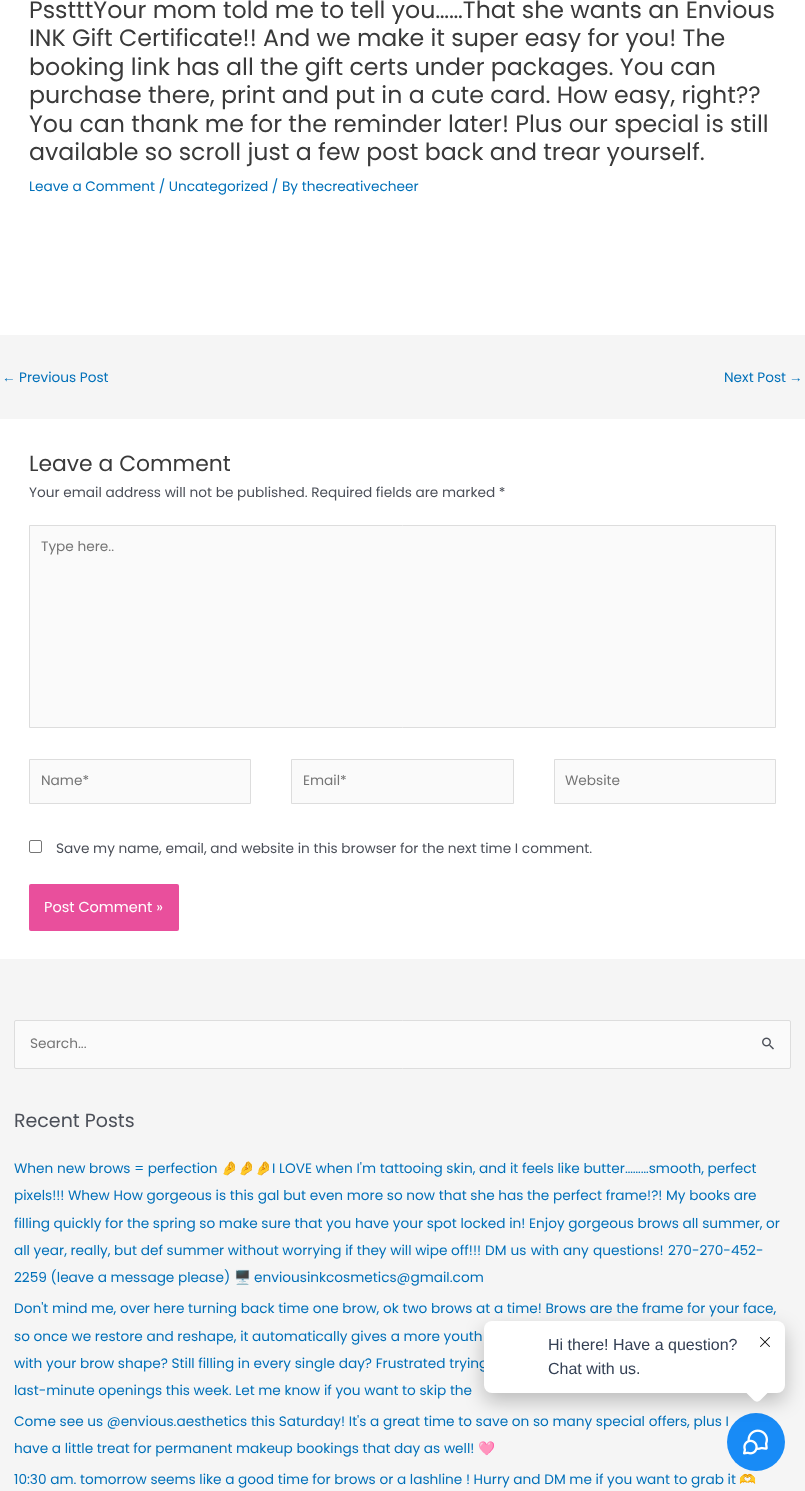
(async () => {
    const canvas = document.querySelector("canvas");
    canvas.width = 805;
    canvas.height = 1491;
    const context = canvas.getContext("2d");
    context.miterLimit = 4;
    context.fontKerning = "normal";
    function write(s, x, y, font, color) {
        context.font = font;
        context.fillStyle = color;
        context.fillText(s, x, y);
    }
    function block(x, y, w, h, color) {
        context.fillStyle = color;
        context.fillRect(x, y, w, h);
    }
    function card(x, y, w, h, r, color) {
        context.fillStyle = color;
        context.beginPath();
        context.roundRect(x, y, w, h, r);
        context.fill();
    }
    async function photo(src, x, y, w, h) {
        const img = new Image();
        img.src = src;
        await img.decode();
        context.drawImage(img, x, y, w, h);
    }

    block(0, 0, 805, 1491, "rgb(245, 245, 245)");
    block(0, 0, 805, 335, "rgb(255, 255, 255)");
    write("PsstttYour mom told me to tell you……That she wants an Envious", 29, 18, "23.7px Poppins", "rgb(58, 58, 58)");
    write("INK Gift Certificate!! And we make it super easy for you! The", 29, 46, "23.7px Poppins", "rgb(58, 58, 58)");
    write("booking link has all the gift certs under packages. You can", 29, 75, "23.7px Poppins", "rgb(58, 58, 58)");
    write("purchase there, print and put in a cute card. How easy, right??", 29, 103, "23.7px Poppins", "rgb(58, 58, 58)");
    write("You can thank me for the reminder later! Plus our special is still", 29, 132, "23.7px Poppins", "rgb(58, 58, 58)");
    write("available so scroll just a few post back and trear yourself.", 29, 160, "23.7px Poppins", "rgb(58, 58, 58)");
    write("Leave a Comment / Uncategorized / By thecreativecheer", 29, 191, "13.68px Poppins", "rgb(1, 112, 185)");
    write("←", 2, 382, "13.68px Liberation Sans", "rgb(1, 112, 185)");
    write("Previous Post", 19, 382, "13.68px Poppins", "rgb(1, 112, 185)");
    write("Next Post", 724, 382, "13.68px Poppins", "rgb(1, 112, 185)");
    write("→", 789, 382, "13.68px Liberation Sans", "rgb(1, 112, 185)");
    block(0, 419, 805, 540, "rgb(255, 255, 255)");
    write("Leave a Comment", 29, 471, "21.9px Poppins", "rgb(58, 58, 58)");
    write("Your email address will not be published. Required fields are marked *", 29, 497, "13.68px Poppins", "rgb(75, 79, 88)");
    context.fillStyle = "rgb(250, 250, 250)";
    context.beginPath();
    context.rect(29.5, 525.5, 746, 202);
    context.fill();
    context.strokeStyle = "rgb(221, 221, 221)";
    context.stroke();
    write("Type here..", 41, 551, "13.68px Poppins", "rgb(117, 117, 117)");
    context.fillStyle = "rgb(250, 250, 250)";
    context.beginPath();
    context.rect(29.5, 759.5, 221, 44);
    context.fill();
    context.stroke();
    write("Name*", 41, 785, "13.68px Poppins", "rgb(117, 117, 117)");
    context.fillStyle = "rgb(250, 250, 250)";
    context.beginPath();
    context.rect(291.5, 759.5, 222, 44);
    context.fill();
    context.stroke();
    write("Email*", 303, 785, "13.68px Poppins", "rgb(117, 117, 117)");
    context.fillStyle = "rgb(250, 250, 250)";
    context.beginPath();
    context.rect(554.5, 759.5, 221, 44);
    context.fill();
    context.stroke();
    write("Website", 565, 785, "13.68px Poppins", "rgb(117, 117, 117)");
    context.beginPath();
    context.roundRect(29.5, 840.5, 12, 12, 1.5);
    context.strokeStyle = "rgb(118, 118, 118)";
    context.stroke();
    write("Save my name, email, and website in this browser for the next time I comment.", 56, 853, "13.68px Poppins", "rgb(75, 79, 88)");
    card(29, 884, 150, 47, 2, "rgb(233, 79, 156)");
    write("Post Comment »", 44, 912, "14.5px Poppins", "rgb(255, 255, 255)");
    context.fillStyle = "rgb(250, 250, 250)";
    context.beginPath();
    context.roundRect(14.5, 1020.5, 776, 48, 1.5);
    context.fill();
    context.strokeStyle = "rgb(221, 221, 221)";
    context.stroke();
    write("Search...", 30, 1048, "13.68px Poppins", "rgb(117, 117, 117)");
    await photo("media/1.png", 762, 1037, 12, 13);
    write("Recent Posts", 14, 1127, "19px Poppins", "rgb(75, 79, 88)");
    write("When new brows = perfection", 14, 1173, "13.68px Poppins", "rgb(1, 112, 185)");
    write("🤌🤌🤌", 221, 1173, "13.68px Noto Color Emoji", "rgb(1, 112, 185)");
    write("I LOVE when I'm tattooing skin, and it feels like butter………smooth, perfect", 272, 1173, "13.68px Poppins", "rgb(1, 112, 185)");
    write("pixels!!! Whew How gorgeous is this gal but even more so now that she has the perfect frame!?! My books are", 14, 1200, "13.68px Poppins", "rgb(1, 112, 185)");
    write("filling quickly for the spring so make sure that you have your spot locked in! Enjoy gorgeous brows all summer, or", 14, 1228, "13.68px Poppins", "rgb(1, 112, 185)");
    write("all year, really, but def summer without worrying if they will wipe off!!!", 14, 1255, "13.68px Poppins", "rgb(1, 112, 185)");
    context.wordSpacing = "0.5px";
    write("DM us with any questions!", 485, 1255, "13.68px Poppins", "rgb(1, 112, 185)");
    context.wordSpacing = "0px";
    write("270-270-452-", 668, 1255, "13.68px Poppins", "rgb(1, 112, 185)");
    write("2259 (leave a message please)", 14, 1282, "13.68px Poppins", "rgb(1, 112, 185)");
    write("🖥", 234, 1282, "13.68px Noto Color Emoji", "rgb(1, 112, 185)");
    write("enviousinkcosmetics@gmail.com", 254, 1282, "13.68px Poppins", "rgb(1, 112, 185)");
    write("Don't mind me, over here turning back time one brow, ok two brows at a time! Brows are the frame for your face,", 14, 1313, "13.68px Poppins", "rgb(1, 112, 185)");
    write("so once we restore and reshape, it automatically gives a more youth", 14, 1341, "13.68px Poppins", "rgb(1, 112, 185)");
    write("with your brow shape? Still filling in every single day? Frustrated trying", 14, 1368, "13.68px Poppins", "rgb(1, 112, 185)");
    write("last-minute openings this week. Let me know if you want to skip the", 14, 1395, "13.68px Poppins", "rgb(1, 112, 185)");
    write("Come see us @envious.aesthetics this Saturday! It's a great time to save on so many special offers, plus I", 14, 1426, "13.68px Poppins", "rgb(1, 112, 185)");
    write("have a little treat for permanent makeup bookings that day as well!", 14, 1453, "13.68px Poppins", "rgb(1, 112, 185)");
    write("🩷", 478, 1453, "13.68px Noto Color Emoji", "rgb(1, 112, 185)");
    write("10:30 am. tomorrow seems like a good time for brows or a lashline ! Hurry and DM me if you want to grab it", 14, 1484, "13.68px Poppins", "rgb(1, 112, 185)");
    write("🫶", 739, 1484, "13.68px Noto Color Emoji", "rgb(1, 112, 185)");
    context.fillStyle = "rgb(24, 139, 246)";
    context.beginPath();
    context.arc(756, 1442, 29, 0, Math.PI * 2);
    context.fill();
    await photo("media/3.png", 743, 1429, 25, 26);
    context.fillStyle = "rgba(0, 0, 0, 0.24)";
    context.filter = "blur(10px)";
    context.beginPath();
    context.roundRect(484, 1329, 301, 72, 8);
    context.fill();
    context.filter = "none";
    card(484, 1321, 301, 72, 8, "rgb(255, 255, 255)");
    write("Hi there! Have a question?", 548, 1350, "16px Liberation Sans", "rgb(52, 64, 84)");
    write("Chat with us.", 548, 1374, "16px Liberation Sans", "rgb(52, 64, 84)");
    context.fillStyle = "rgb(255, 255, 255)";
    context.beginPath();
    context.moveTo(760, 1377.5);
    context.lineTo(768.5, 1386);
    context.bezierCurveTo(770, 1387.5, 770, 1390.5, 768.5, 1392);
    context.lineTo(760, 1400.5);
    context.bezierCurveTo(758.5, 1402, 755.5, 1402, 754, 1400.5);
    context.lineTo(745.5, 1392);
    context.bezierCurveTo(744, 1390.5, 744, 1387.5, 745.5, 1386);
    context.lineTo(754, 1377.5);
    context.bezierCurveTo(755.5, 1376, 758.5, 1376, 760, 1377.5);
    context.closePath();
    context.fill();
    await photo("media/2.png", 760, 1337, 10, 10);
})();
